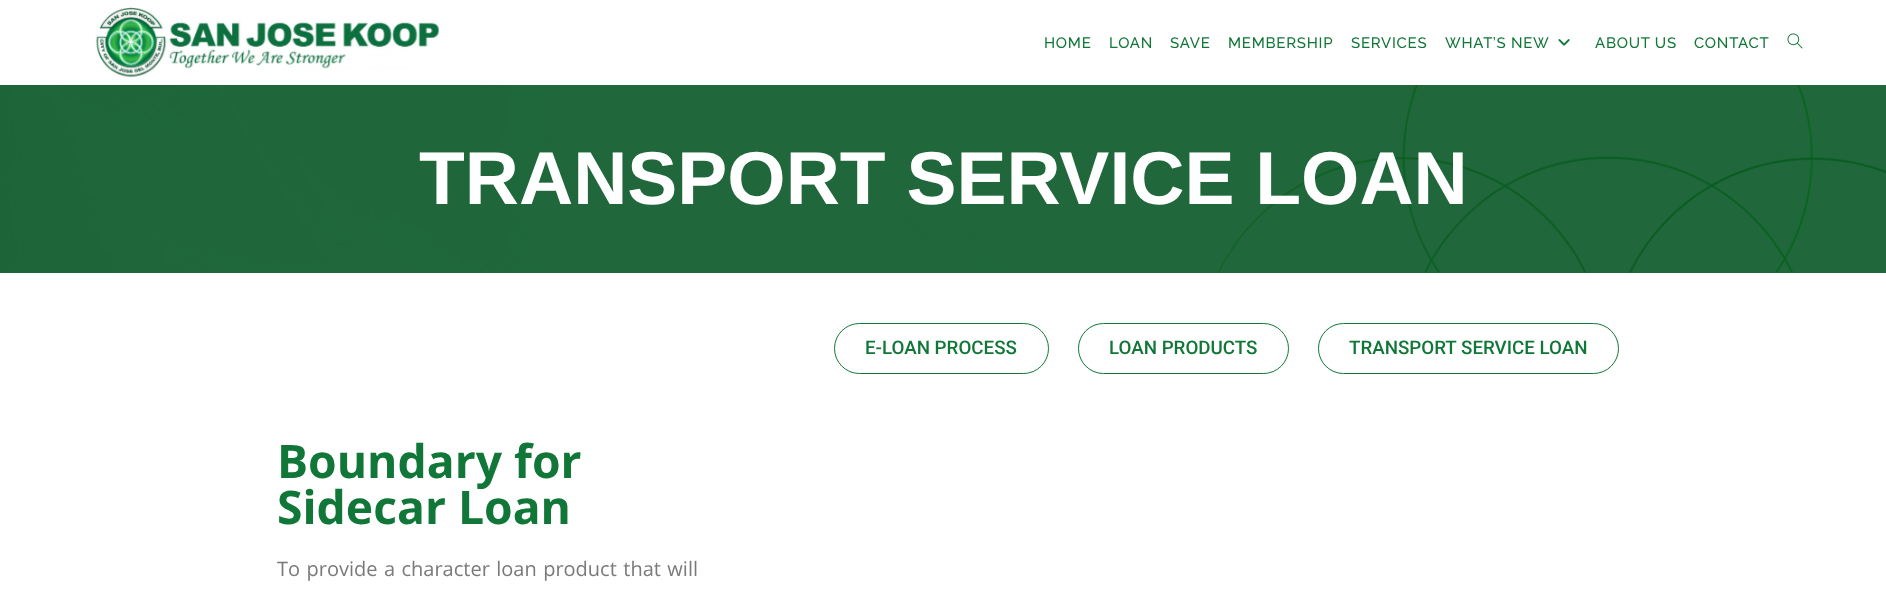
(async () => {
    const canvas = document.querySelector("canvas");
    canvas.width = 1886;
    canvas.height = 590;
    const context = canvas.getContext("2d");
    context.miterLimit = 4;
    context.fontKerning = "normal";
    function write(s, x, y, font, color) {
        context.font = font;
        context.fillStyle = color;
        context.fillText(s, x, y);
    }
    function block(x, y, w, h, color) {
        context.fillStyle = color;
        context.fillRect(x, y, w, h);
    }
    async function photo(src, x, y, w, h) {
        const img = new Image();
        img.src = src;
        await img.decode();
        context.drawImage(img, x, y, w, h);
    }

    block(0, 0, 1886, 590, "rgb(255, 255, 255)");
    block(0, 272, 1886, 1, "rgb(32, 105, 60)");
    await photo("media/1.png", 95, 7, 345, 71);
    context.letterSpacing = "0.75px";
    write("HOME", 1044, 48, "500 15px Raleway", "rgb(17, 119, 56)");
    write("LOAN", 1109, 48, "500 15px Raleway", "rgb(17, 119, 56)");
    write("SAVE", 1170, 48, "500 15px Raleway", "rgb(17, 119, 56)");
    write("MEMBERSHIP", 1228, 48, "500 15px Raleway", "rgb(17, 119, 56)");
    write("SERVICES", 1351, 48, "500 15px Raleway", "rgb(17, 119, 56)");
    write("WHAT’S NEW", 1445, 48, "500 15px Raleway", "rgb(17, 119, 56)");
    await photo("media/2.png", 1558, 39, 12, 7);
    write("ABOUT US", 1595, 48, "500 15px Raleway", "rgb(17, 119, 56)");
    write("CONTACT", 1694, 48, "500 15px Raleway", "rgb(17, 119, 56)");
    await photo("media/3.png", 1787, 33, 16, 16);
    await photo("media/4.png", 0, 85, 1886, 188);
    context.letterSpacing = "0px";
    write("TRANSPORT SERVICE LOAN", 419, 204, "bold 75px Liberation Sans", "rgb(255, 255, 255)");
    context.beginPath();
    context.roundRect(834.5, 323.5, 214, 50, 25);
    context.strokeStyle = "rgb(17, 119, 56)";
    context.stroke();
    write("E-LOAN PROCESS", 865, 354, "500 18.75px Roboto", "rgb(17, 119, 56)");
    context.beginPath();
    context.roundRect(1078.5, 323.5, 210, 50, 25);
    context.stroke();
    write("LOAN PRODUCTS", 1109, 354, "500 18.75px Roboto", "rgb(17, 119, 56)");
    context.beginPath();
    context.roundRect(1318.5, 323.5, 300, 50, 25);
    context.stroke();
    write("TRANSPORT SERVICE LOAN", 1349, 354, "500 18.75px Roboto", "rgb(17, 119, 56)");
    write("Boundary for", 277, 478, "bold 46.25px Open Sans", "rgb(17, 119, 56)");
    write("Sidecar Loan", 277, 524, "bold 46.25px Open Sans", "rgb(17, 119, 56)");
    context.wordSpacing = "1.25px";
    write("To provide a character loan product that will", 277, 576, "20px Open Sans", "rgb(122, 122, 122)");
})();
